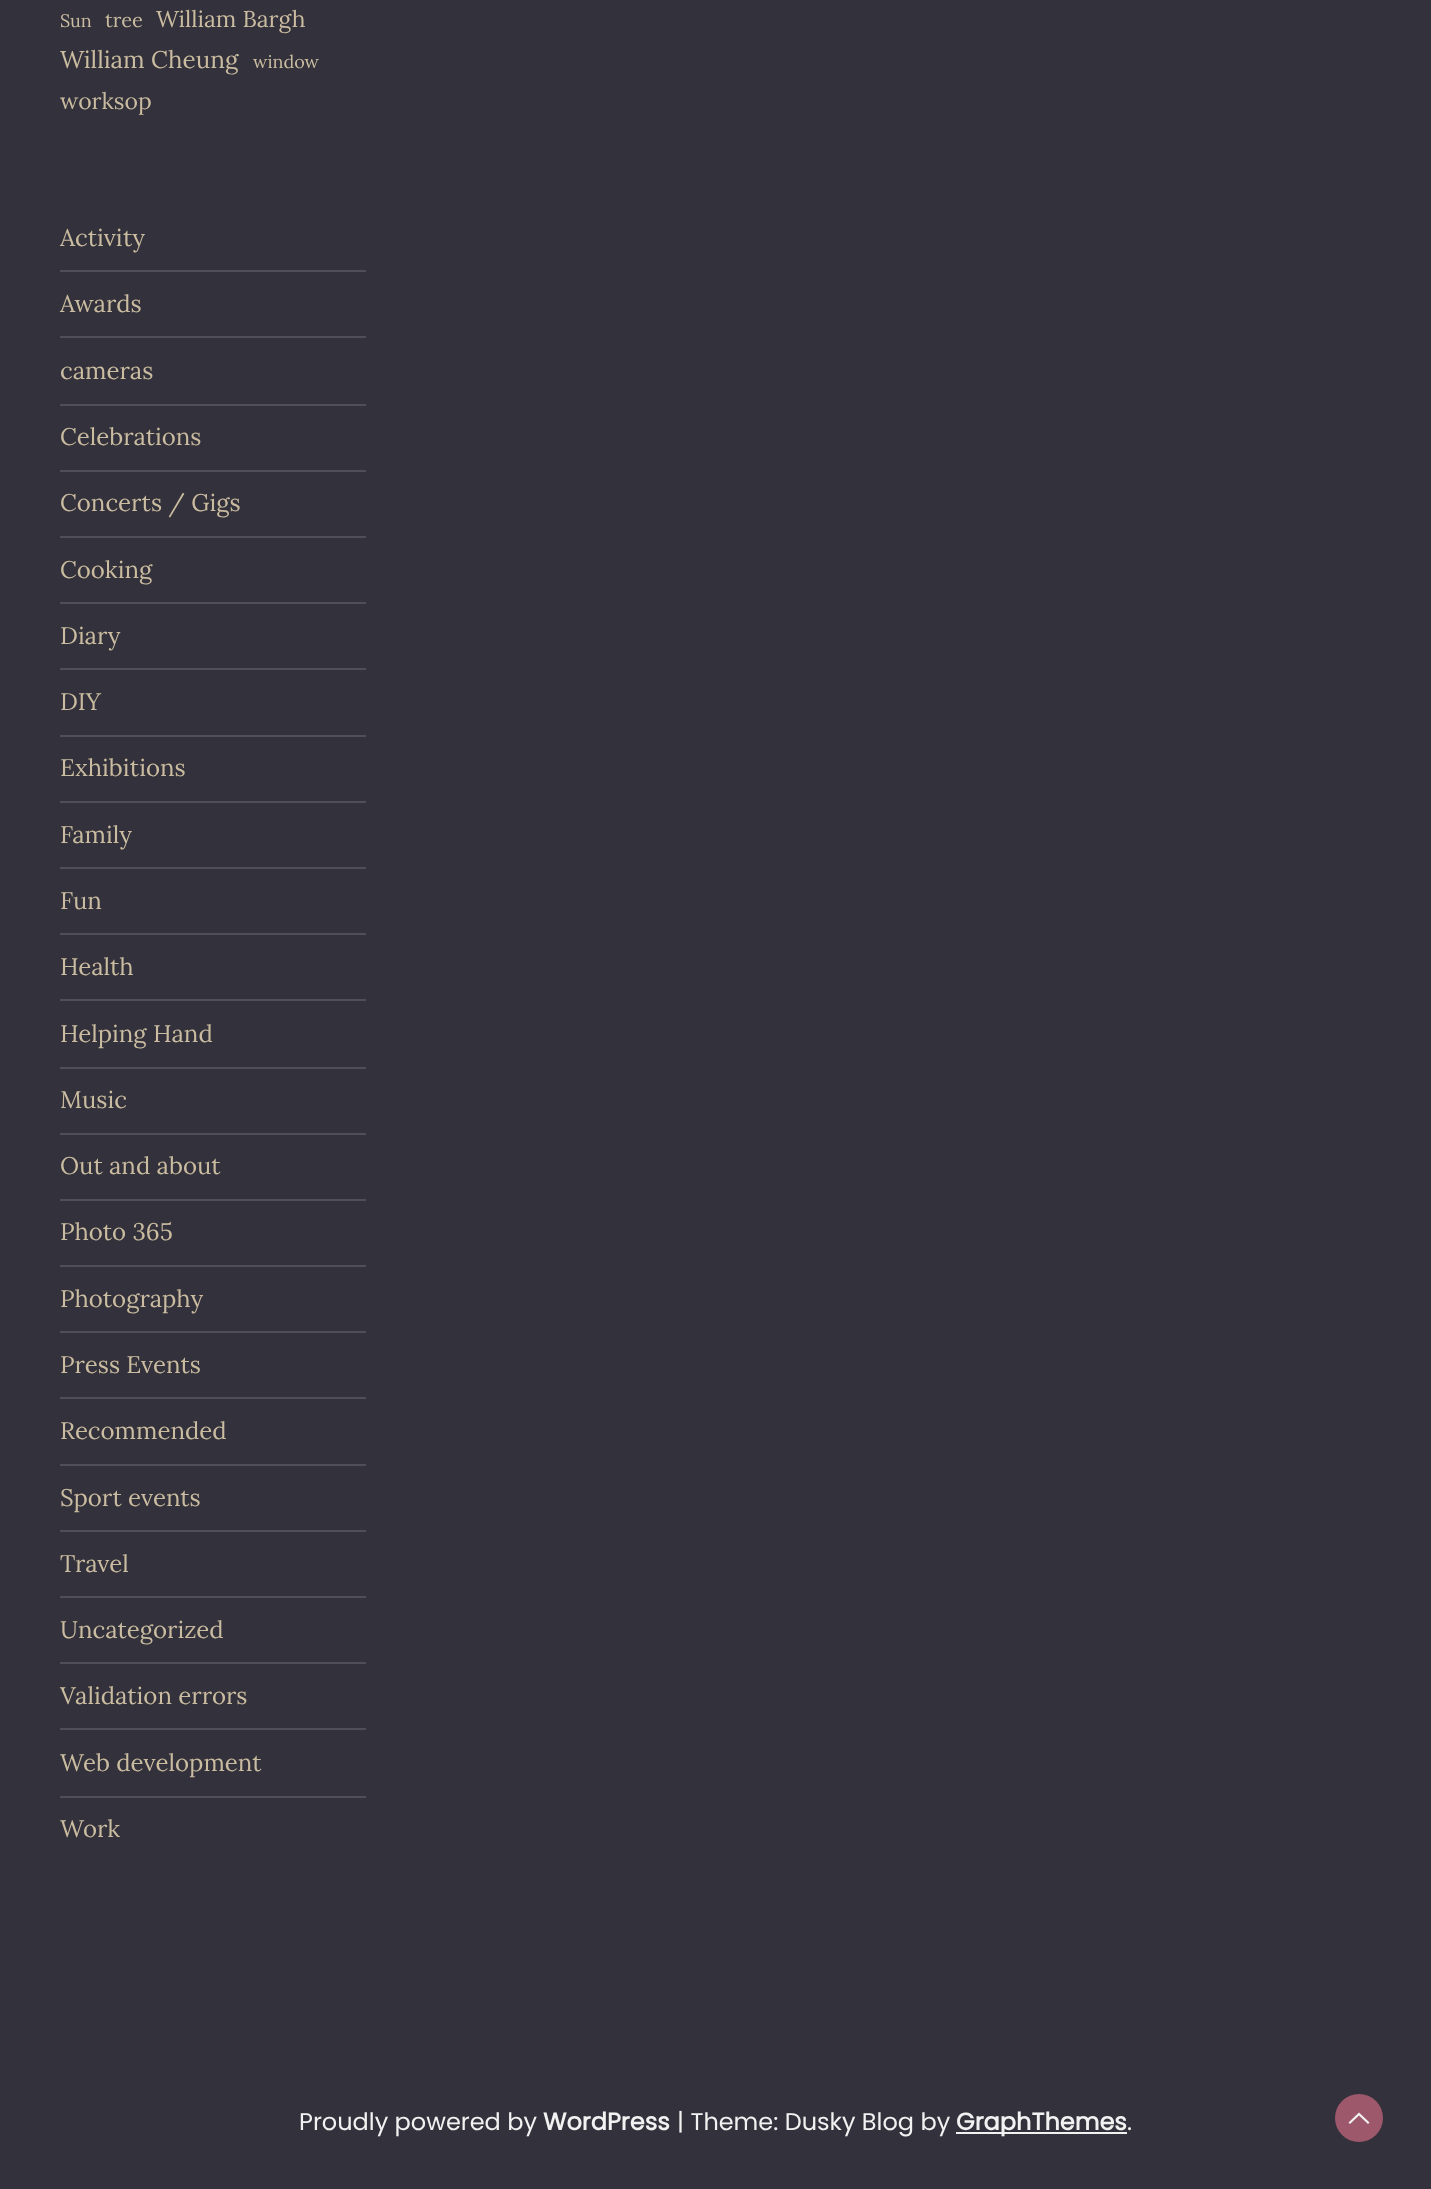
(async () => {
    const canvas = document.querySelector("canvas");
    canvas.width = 1431;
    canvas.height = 2189;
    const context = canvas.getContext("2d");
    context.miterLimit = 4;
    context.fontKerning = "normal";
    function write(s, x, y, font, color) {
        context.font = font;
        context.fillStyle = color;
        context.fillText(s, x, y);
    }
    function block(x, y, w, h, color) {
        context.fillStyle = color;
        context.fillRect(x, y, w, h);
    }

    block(0, 0, 1431, 2189, "rgb(51, 49, 59)");
    write("Sun", 60, 27, "18px Lora", "rgb(202, 188, 160)");
    write("tree", 105, 27, "20px Lora", "rgb(202, 188, 160)");
    write("William Bargh", 156, 27, "23px Lora", "rgb(202, 188, 160)");
    write("William Cheung", 60, 68, "24.25px Lora", "rgb(202, 188, 160)");
    write("window", 253, 68, "18px Lora", "rgb(202, 188, 160)");
    write("worksop", 60, 109, "23px Lora", "rgb(202, 188, 160)");
    block(60, 270, 306, 2, "rgb(80, 78, 86)");
    write("Activity", 60, 246, "24px Lora", "rgb(202, 188, 160)");
    block(60, 336, 306, 2, "rgb(80, 78, 86)");
    write("Awards", 60, 312, "24px Lora", "rgb(202, 188, 160)");
    block(60, 404, 306, 2, "rgb(80, 78, 86)");
    write("cameras", 60, 379, "24px Lora", "rgb(202, 188, 160)");
    block(60, 470, 306, 2, "rgb(80, 78, 86)");
    write("Celebrations", 60, 445, "24px Lora", "rgb(202, 188, 160)");
    block(60, 536, 306, 2, "rgb(80, 78, 86)");
    write("Concerts / Gigs", 60, 511, "24px Lora", "rgb(202, 188, 160)");
    block(60, 602, 306, 2, "rgb(80, 78, 86)");
    write("Cooking", 60, 578, "24px Lora", "rgb(202, 188, 160)");
    block(60, 668, 306, 2, "rgb(80, 78, 86)");
    write("Diary", 60, 644, "24px Lora", "rgb(202, 188, 160)");
    block(60, 735, 306, 2, "rgb(80, 78, 86)");
    write("DIY", 60, 710, "24px Lora", "rgb(202, 188, 160)");
    block(60, 801, 306, 2, "rgb(80, 78, 86)");
    write("Exhibitions", 60, 776, "24px Lora", "rgb(202, 188, 160)");
    block(60, 867, 306, 2, "rgb(80, 78, 86)");
    write("Family", 60, 843, "24px Lora", "rgb(202, 188, 160)");
    block(60, 933, 306, 2, "rgb(80, 78, 86)");
    write("Fun", 60, 909, "24px Lora", "rgb(202, 188, 160)");
    block(60, 999, 306, 2, "rgb(80, 78, 86)");
    write("Health", 60, 975, "24px Lora", "rgb(202, 188, 160)");
    block(60, 1067, 306, 2, "rgb(80, 78, 86)");
    write("Helping Hand", 60, 1042, "24px Lora", "rgb(202, 188, 160)");
    block(60, 1133, 306, 2, "rgb(80, 78, 86)");
    write("Music", 60, 1108, "24px Lora", "rgb(202, 188, 160)");
    block(60, 1199, 306, 2, "rgb(80, 78, 86)");
    write("Out and about", 60, 1174, "24px Lora", "rgb(202, 188, 160)");
    block(60, 1265, 306, 2, "rgb(80, 78, 86)");
    write("Photo 365", 60, 1240, "24px Lora", "rgb(202, 188, 160)");
    block(60, 1331, 306, 2, "rgb(80, 78, 86)");
    write("Photography", 60, 1307, "24px Lora", "rgb(202, 188, 160)");
    block(60, 1397, 306, 2, "rgb(80, 78, 86)");
    write("Press Events", 60, 1373, "24px Lora", "rgb(202, 188, 160)");
    block(60, 1464, 306, 2, "rgb(80, 78, 86)");
    write("Recommended", 60, 1439, "24px Lora", "rgb(202, 188, 160)");
    block(60, 1530, 306, 2, "rgb(80, 78, 86)");
    write("Sport events", 60, 1506, "24px Lora", "rgb(202, 188, 160)");
    block(60, 1596, 306, 2, "rgb(80, 78, 86)");
    write("Travel", 60, 1572, "24px Lora", "rgb(202, 188, 160)");
    block(60, 1662, 306, 2, "rgb(80, 78, 86)");
    write("Uncategorized", 60, 1638, "24px Lora", "rgb(202, 188, 160)");
    block(60, 1728, 306, 2, "rgb(80, 78, 86)");
    write("Validation errors", 60, 1704, "24px Lora", "rgb(202, 188, 160)");
    block(60, 1796, 306, 2, "rgb(80, 78, 86)");
    write("Web development", 60, 1771, "24px Lora", "rgb(202, 188, 160)");
    write("Work", 60, 1837, "24px Lora", "rgb(202, 188, 160)");
    write("Proudly powered by", 299, 2130, "24px Poppins", "rgb(242, 242, 242)");
    write("WordPress", 543, 2130, "bold 24px Poppins", "rgb(242, 242, 242)");
    write("| Theme: Dusky Blog by", 677, 2130, "24px Poppins", "rgb(242, 242, 242)");
    block(956, 2132, 171, 2, "rgb(242, 242, 242)");
    write("GraphThemes", 956, 2130, "bold 24px Poppins", "rgb(242, 242, 242)");
    write(".", 1127, 2130, "24px Poppins", "rgb(242, 242, 242)");
    context.fillStyle = "rgb(158, 88, 107)";
    context.beginPath();
    context.arc(1359, 2118, 24, 0, Math.PI * 2);
    context.fill();
    context.fillStyle = "rgb(242, 242, 242)";
    context.beginPath();
    context.moveTo(1369.5, 2122.5);
    context.lineTo(1368, 2124);
    context.lineTo(1359, 2115.5);
    context.lineTo(1350, 2124);
    context.lineTo(1348.5, 2122.5);
    context.lineTo(1359, 2112.5);
    context.lineTo(1369.5, 2122.5);
    context.fill();
})();
